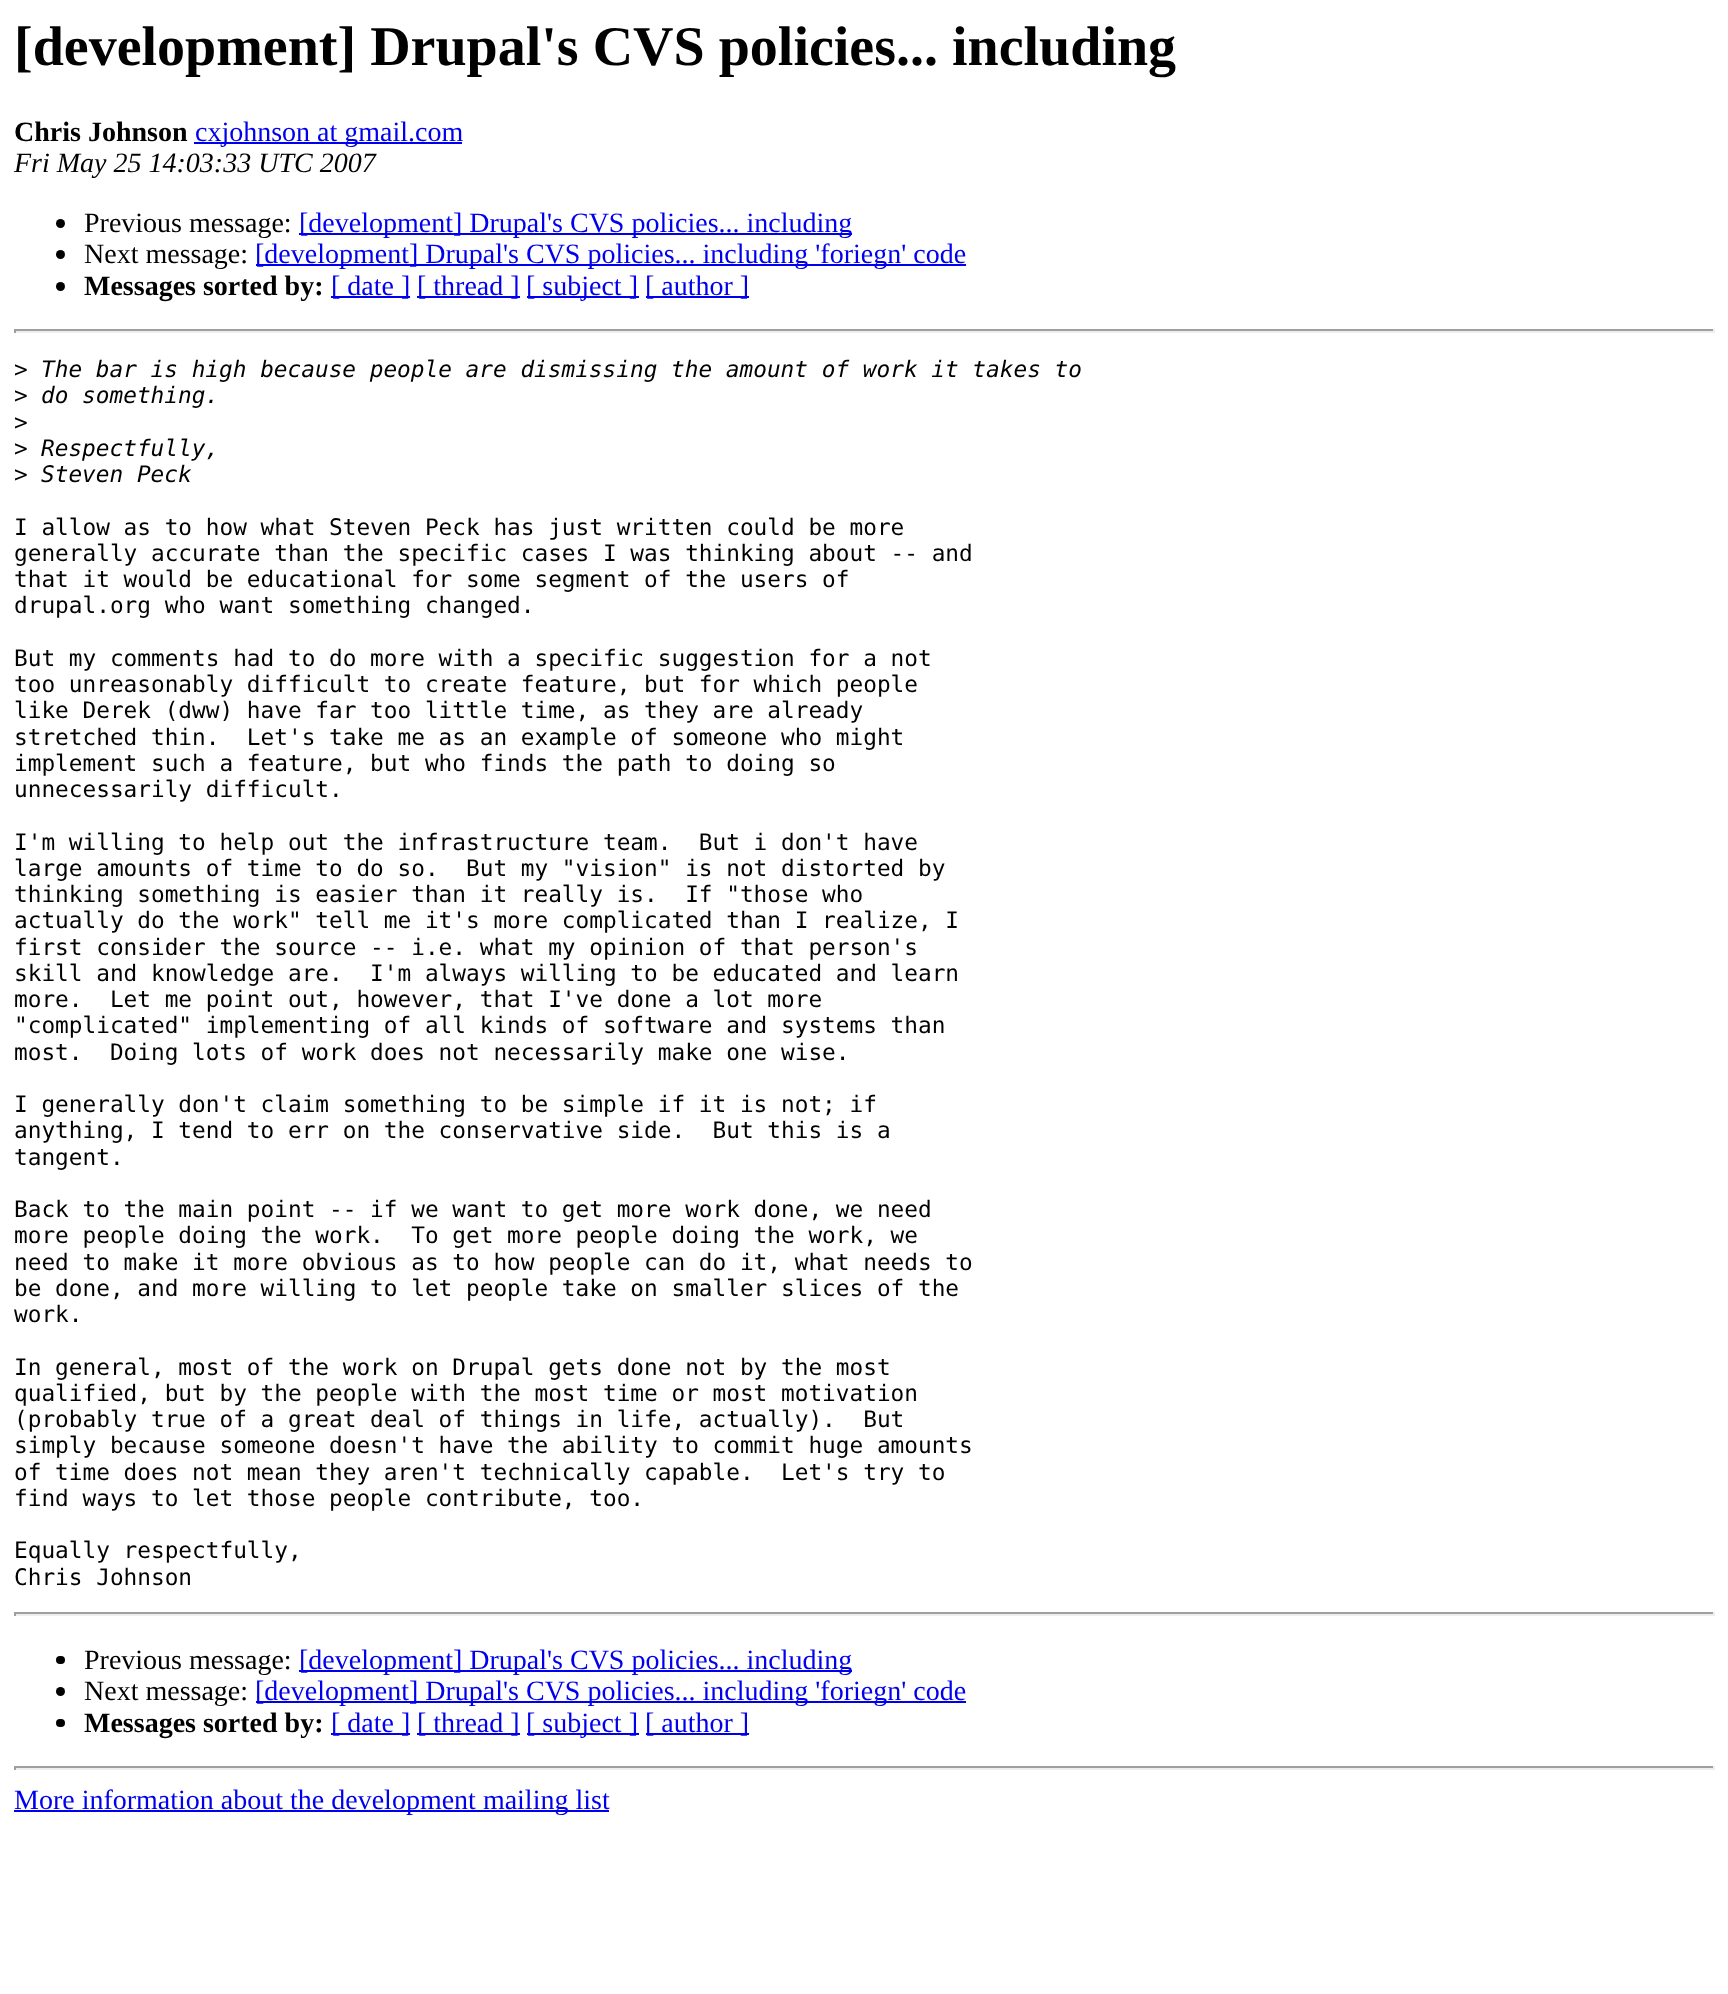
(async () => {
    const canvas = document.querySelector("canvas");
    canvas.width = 1728;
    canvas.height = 1994;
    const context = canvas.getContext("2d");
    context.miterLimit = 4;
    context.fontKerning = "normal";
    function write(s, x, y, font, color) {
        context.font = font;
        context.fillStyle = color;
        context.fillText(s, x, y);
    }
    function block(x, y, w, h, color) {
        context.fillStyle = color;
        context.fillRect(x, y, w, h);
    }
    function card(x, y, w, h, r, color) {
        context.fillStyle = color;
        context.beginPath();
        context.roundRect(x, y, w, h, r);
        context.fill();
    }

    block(0, 0, 1728, 1994, "rgb(255, 255, 255)");
    write("[development] Drupal's CVS policies... including", 14, 65, "bold 56px Liberation Serif", "rgb(0, 0, 0)");
    write("Chris Johnson", 14, 141, "bold 28px Liberation Serif", "rgb(0, 0, 0)");
    block(194, 142, 268, 2, "rgb(0, 0, 238)");
    write("cxjohnson at gmail.com", 195, 141, "28px Liberation Serif", "rgb(0, 0, 238)");
    write("Fri May 25 14:03:33 UTC 2007", 14, 172, "italic 28px Liberation Serif", "rgb(0, 0, 0)");
    context.beginPath();
    context.arc(60.5, 223.5, 4.5, 0, Math.PI * 2);
    context.fill();
    write("Previous message:", 84, 232, "28px Liberation Serif", "rgb(0, 0, 0)");
    block(299, 233, 553, 2, "rgb(0, 0, 238)");
    write("[development] Drupal's CVS policies... including", 299, 232, "28px Liberation Serif", "rgb(0, 0, 238)");
    context.fillStyle = "rgb(0, 0, 0)";
    context.beginPath();
    context.arc(60.5, 254.5, 4.5, 0, Math.PI * 2);
    context.fill();
    write("Next message:", 84, 263, "28px Liberation Serif", "rgb(0, 0, 0)");
    block(256, 264, 710, 2, "rgb(0, 0, 238)");
    write("[development] Drupal's CVS policies... including 'foriegn' code", 255, 263, "28px Liberation Serif", "rgb(0, 0, 238)");
    context.fillStyle = "rgb(0, 0, 0)";
    context.beginPath();
    context.arc(60.5, 286.5, 4.5, 0, Math.PI * 2);
    context.fill();
    write("Messages sorted by:", 84, 295, "bold 28px Liberation Serif", "rgb(0, 0, 0)");
    block(331, 296, 79, 2, "rgb(0, 0, 238)");
    write("[ date ]", 331, 295, "28px Liberation Serif", "rgb(0, 0, 238)");
    block(417, 296, 103, 2, "rgb(0, 0, 238)");
    write("[ thread ]", 417, 295, "28px Liberation Serif", "rgb(0, 0, 238)");
    block(527, 296, 112, 2, "rgb(0, 0, 238)");
    write("[ subject ]", 526, 295, "28px Liberation Serif", "rgb(0, 0, 238)");
    block(646, 296, 103, 2, "rgb(0, 0, 238)");
    write("[ author ]", 645, 295, "28px Liberation Serif", "rgb(0, 0, 238)");
    block(14, 329, 1701, 2, "rgb(159, 159, 159)");
    block(1713, 329, 2, 4, "rgb(238, 238, 238)");
    block(14, 331, 1701, 2, "rgb(238, 238, 238)");
    block(14, 329, 2, 4, "rgb(159, 159, 159)");
    write(">", 14, 377, "22.75px DejaVu Sans Mono", "rgb(0, 0, 0)");
    write("The bar is high because people are dismissing the amount of work it takes to", 41, 377, "italic 22.75px DejaVu Sans Mono", "rgb(0, 0, 0)");
    write(">", 14, 403, "22.75px DejaVu Sans Mono", "rgb(0, 0, 0)");
    write("do something.", 41, 403, "italic 22.75px DejaVu Sans Mono", "rgb(0, 0, 0)");
    write(">", 14, 430, "22.75px DejaVu Sans Mono", "rgb(0, 0, 0)");
    write(">", 14, 456, "22.75px DejaVu Sans Mono", "rgb(0, 0, 0)");
    write("Respectfully,", 41, 456, "italic 22.75px DejaVu Sans Mono", "rgb(0, 0, 0)");
    write(">", 14, 482, "22.75px DejaVu Sans Mono", "rgb(0, 0, 0)");
    write("Steven Peck", 41, 482, "italic 22.75px DejaVu Sans Mono", "rgb(0, 0, 0)");
    write("I allow as to how what Steven Peck has just written could be more", 14, 535, "22.75px DejaVu Sans Mono", "rgb(0, 0, 0)");
    write("generally accurate than the specific cases I was thinking about -- and", 14, 561, "22.75px DejaVu Sans Mono", "rgb(0, 0, 0)");
    write("that it would be educational for some segment of the users of", 14, 587, "22.75px DejaVu Sans Mono", "rgb(0, 0, 0)");
    write("drupal.org who want something changed.", 14, 613, "22.75px DejaVu Sans Mono", "rgb(0, 0, 0)");
    write("But my comments had to do more with a specific suggestion for a not", 14, 666, "22.75px DejaVu Sans Mono", "rgb(0, 0, 0)");
    write("too unreasonably difficult to create feature, but for which people", 14, 692, "22.75px DejaVu Sans Mono", "rgb(0, 0, 0)");
    write("like Derek (dww) have far too little time, as they are already", 14, 718, "22.75px DejaVu Sans Mono", "rgb(0, 0, 0)");
    write("stretched thin.  Let's take me as an example of someone who might", 14, 745, "22.75px DejaVu Sans Mono", "rgb(0, 0, 0)");
    write("implement such a feature, but who finds the path to doing so", 14, 771, "22.75px DejaVu Sans Mono", "rgb(0, 0, 0)");
    write("unnecessarily difficult.", 14, 797, "22.75px DejaVu Sans Mono", "rgb(0, 0, 0)");
    write("I'm willing to help out the infrastructure team.  But i don't have", 14, 850, "22.75px DejaVu Sans Mono", "rgb(0, 0, 0)");
    write("large amounts of time to do so.  But my \"vision\" is not distorted by", 14, 876, "22.75px DejaVu Sans Mono", "rgb(0, 0, 0)");
    write("thinking something is easier than it really is.  If \"those who", 14, 902, "22.75px DejaVu Sans Mono", "rgb(0, 0, 0)");
    write("actually do the work\" tell me it's more complicated than I realize, I", 14, 928, "22.75px DejaVu Sans Mono", "rgb(0, 0, 0)");
    write("first consider the source -- i.e. what my opinion of that person's", 14, 955, "22.75px DejaVu Sans Mono", "rgb(0, 0, 0)");
    write("skill and knowledge are.  I'm always willing to be educated and learn", 14, 981, "22.75px DejaVu Sans Mono", "rgb(0, 0, 0)");
    write("more.  Let me point out, however, that I've done a lot more", 14, 1007, "22.75px DejaVu Sans Mono", "rgb(0, 0, 0)");
    write("\"complicated\" implementing of all kinds of software and systems than", 14, 1033, "22.75px DejaVu Sans Mono", "rgb(0, 0, 0)");
    write("most.  Doing lots of work does not necessarily make one wise.", 14, 1060, "22.75px DejaVu Sans Mono", "rgb(0, 0, 0)");
    write("I generally don't claim something to be simple if it is not; if", 14, 1112, "22.75px DejaVu Sans Mono", "rgb(0, 0, 0)");
    write("anything, I tend to err on the conservative side.  But this is a", 14, 1138, "22.75px DejaVu Sans Mono", "rgb(0, 0, 0)");
    write("tangent.", 14, 1165, "22.75px DejaVu Sans Mono", "rgb(0, 0, 0)");
    write("Back to the main point -- if we want to get more work done, we need", 14, 1217, "22.75px DejaVu Sans Mono", "rgb(0, 0, 0)");
    write("more people doing the work.  To get more people doing the work, we", 14, 1243, "22.75px DejaVu Sans Mono", "rgb(0, 0, 0)");
    write("need to make it more obvious as to how people can do it, what needs to", 14, 1270, "22.75px DejaVu Sans Mono", "rgb(0, 0, 0)");
    write("be done, and more willing to let people take on smaller slices of the", 14, 1296, "22.75px DejaVu Sans Mono", "rgb(0, 0, 0)");
    write("work.", 14, 1322, "22.75px DejaVu Sans Mono", "rgb(0, 0, 0)");
    write("In general, most of the work on Drupal gets done not by the most", 14, 1375, "22.75px DejaVu Sans Mono", "rgb(0, 0, 0)");
    write("qualified, but by the people with the most time or most motivation", 14, 1401, "22.75px DejaVu Sans Mono", "rgb(0, 0, 0)");
    write("(probably true of a great deal of things in life, actually).  But", 14, 1427, "22.75px DejaVu Sans Mono", "rgb(0, 0, 0)");
    write("simply because someone doesn't have the ability to commit huge amounts", 14, 1453, "22.75px DejaVu Sans Mono", "rgb(0, 0, 0)");
    write("of time does not mean they aren't technically capable.  Let's try to", 14, 1480, "22.75px DejaVu Sans Mono", "rgb(0, 0, 0)");
    write("find ways to let those people contribute, too.", 14, 1506, "22.75px DejaVu Sans Mono", "rgb(0, 0, 0)");
    write("Equally respectfully,", 14, 1558, "22.75px DejaVu Sans Mono", "rgb(0, 0, 0)");
    write("Chris Johnson", 14, 1585, "22.75px DejaVu Sans Mono", "rgb(0, 0, 0)");
    block(14, 1612, 1701, 2, "rgb(159, 159, 159)");
    block(1713, 1612, 2, 4, "rgb(238, 238, 238)");
    block(14, 1614, 1701, 2, "rgb(238, 238, 238)");
    block(14, 1612, 2, 4, "rgb(159, 159, 159)");
    card(56, 1656, 9, 8, 4, "rgb(0, 0, 0)");
    write("Previous message:", 84, 1669, "28px Liberation Serif", "rgb(0, 0, 0)");
    block(299, 1670, 553, 2, "rgb(0, 0, 238)");
    write("[development] Drupal's CVS policies... including", 299, 1669, "28px Liberation Serif", "rgb(0, 0, 238)");
    context.fillStyle = "rgb(0, 0, 0)";
    context.beginPath();
    context.arc(60.5, 1691.5, 4.5, 0, Math.PI * 2);
    context.fill();
    write("Next message:", 84, 1700, "28px Liberation Serif", "rgb(0, 0, 0)");
    block(256, 1701, 710, 2, "rgb(0, 0, 238)");
    write("[development] Drupal's CVS policies... including 'foriegn' code", 255, 1700, "28px Liberation Serif", "rgb(0, 0, 238)");
    card(56, 1719, 9, 8, 4, "rgb(0, 0, 0)");
    write("Messages sorted by:", 84, 1732, "bold 28px Liberation Serif", "rgb(0, 0, 0)");
    block(331, 1733, 79, 2, "rgb(0, 0, 238)");
    write("[ date ]", 331, 1732, "28px Liberation Serif", "rgb(0, 0, 238)");
    block(417, 1733, 103, 2, "rgb(0, 0, 238)");
    write("[ thread ]", 417, 1732, "28px Liberation Serif", "rgb(0, 0, 238)");
    block(527, 1733, 112, 2, "rgb(0, 0, 238)");
    write("[ subject ]", 526, 1732, "28px Liberation Serif", "rgb(0, 0, 238)");
    block(646, 1733, 103, 2, "rgb(0, 0, 238)");
    write("[ author ]", 645, 1732, "28px Liberation Serif", "rgb(0, 0, 238)");
    block(14, 1766, 1701, 2, "rgb(159, 159, 159)");
    block(1713, 1766, 2, 4, "rgb(238, 238, 238)");
    block(14, 1768, 1701, 2, "rgb(238, 238, 238)");
    block(14, 1766, 2, 4, "rgb(159, 159, 159)");
    block(14, 1810, 595, 2, "rgb(0, 0, 238)");
    write("More information about the development mailing list", 14, 1809, "28px Liberation Serif", "rgb(0, 0, 238)");
})();
